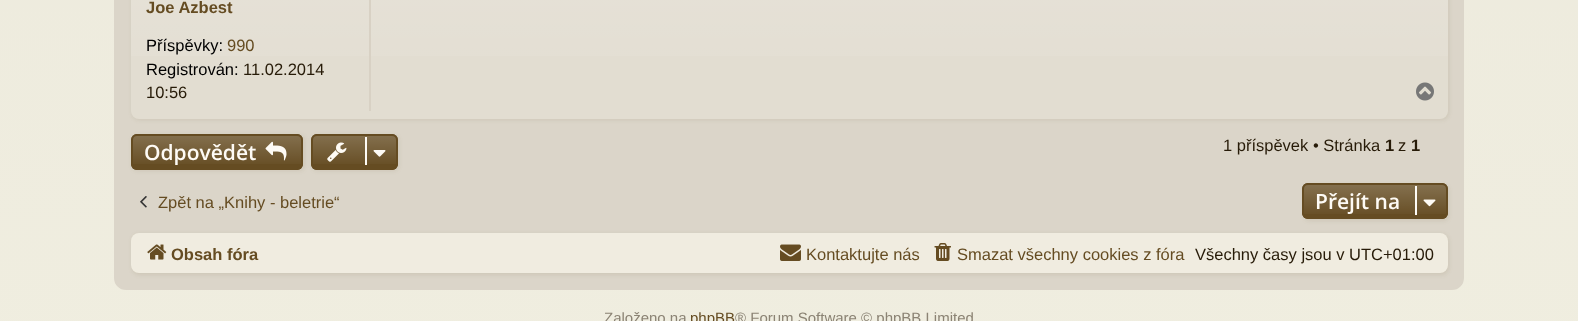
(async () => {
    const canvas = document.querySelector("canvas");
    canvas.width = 1578;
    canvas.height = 321;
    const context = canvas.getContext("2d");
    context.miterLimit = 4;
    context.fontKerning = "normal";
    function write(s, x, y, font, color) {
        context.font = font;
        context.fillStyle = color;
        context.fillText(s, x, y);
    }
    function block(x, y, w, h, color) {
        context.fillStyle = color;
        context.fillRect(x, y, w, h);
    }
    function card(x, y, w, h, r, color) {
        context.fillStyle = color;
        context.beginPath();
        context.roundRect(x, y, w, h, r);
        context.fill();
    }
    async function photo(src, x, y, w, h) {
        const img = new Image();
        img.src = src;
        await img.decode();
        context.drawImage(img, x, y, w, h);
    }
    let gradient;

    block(0, 0, 1578, 321, "rgb(255, 255, 255)");
    gradient = context.createLinearGradient(789, -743, 789, 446);
    gradient.addColorStop(0, "rgb(226, 221, 209)");
    gradient.addColorStop(0.25, "rgb(236, 233, 220)");
    gradient.addColorStop(1, "rgb(240, 238, 224)");
    context.fillStyle = gradient;
    context.fillRect(0, 0, 1578, 321);
    context.fillStyle = "rgb(219, 213, 201)";
    context.beginPath();
    context.roundRect(115, -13, 1348, 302, 11);
    context.fill();
    context.strokeStyle = "rgb(219, 213, 201)";
    context.lineWidth = 2;
    context.stroke();
    context.fillStyle = "rgba(101, 76, 34, 0.1)";
    context.filter = "blur(2px)";
    context.beginPath();
    context.roundRect(132, -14, 1317, 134, 8);
    context.fill();
    context.filter = "none";
    card(131, -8, 1317, 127, 8, "rgb(226, 221, 209)");
    gradient = context.createLinearGradient(789, -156, 789, 119);
    gradient.addColorStop(0, "rgba(255, 255, 255, 0.25)");
    gradient.addColorStop(1, "rgba(255, 255, 255, 0)");
    context.fillStyle = gradient;
    context.fillRect(131, 0, 1317, 56);
    block(369, 0, 2, 111, "rgb(216, 209, 196)");
    write("Joe Azbest", 146, 13, "bold 16.5px Liberation Sans", "rgb(101, 76, 34)");
    write("Příspěvky:", 146, 51, "16.5px Liberation Sans", "rgb(0, 0, 0)");
    write("990", 227, 51, "16.5px Liberation Sans", "rgb(101, 76, 34)");
    write("Registrován:", 146, 75, "16.5px Liberation Sans", "rgb(0, 0, 0)");
    write("11.02.2014", 243, 75, "16.5px Liberation Sans", "rgb(39, 27, 8)");
    write("10:56", 146, 98, "16.5px Liberation Sans", "rgb(39, 27, 8)");
    await photo("media/1.png", 1416, 82, 18, 19);
    context.fillStyle = "rgba(101, 76, 34, 0.1)";
    context.filter = "blur(2px)";
    context.beginPath();
    context.roundRect(132, 135, 173, 36, 6);
    context.fill();
    context.filter = "none";
    card(131, 134, 172, 36, 6, "rgb(101, 76, 34)");
    context.save();
    context.beginPath();
    context.roundRect(131, 134, 172, 36, 6);
    context.clip();
    gradient = context.createLinearGradient(217, 135, 217, 168);
    gradient.addColorStop(0, "rgba(255, 255, 255, 0.2)");
    gradient.addColorStop(1, "rgba(255, 255, 255, 0)");
    context.fillStyle = gradient;
    context.fillRect(131, 135, 172, 29);
    context.restore();
    context.beginPath();
    context.roundRect(132, 135, 170, 34, 5);
    context.strokeStyle = "rgb(101, 76, 34)";
    context.stroke();
    write("Odpovědět", 144, 160, "600 21px Open Sans", "rgb(254, 251, 245)");
    await photo("media/2.png", 265, 141, 22, 20);
    context.fillStyle = "rgba(101, 76, 34, 0.1)";
    context.filter = "blur(2px)";
    context.beginPath();
    context.roundRect(312, 135, 87, 36, 6);
    context.fill();
    context.filter = "none";
    card(311, 134, 87, 36, 6, "rgb(101, 76, 34)");
    context.save();
    context.beginPath();
    context.roundRect(311, 134, 87, 36, 6);
    context.clip();
    gradient = context.createLinearGradient(354, 135, 354, 168);
    gradient.addColorStop(0, "rgba(255, 255, 255, 0.2)");
    gradient.addColorStop(1, "rgba(255, 255, 255, 0)");
    context.fillStyle = gradient;
    context.fillRect(311, 135, 87, 29);
    context.restore();
    context.beginPath();
    context.roundRect(312, 135, 85, 34, 5);
    context.stroke();
    await photo("media/3.png", 327, 142, 20, 20);
    block(365, 137, 2, 28, "rgb(254, 251, 245)");
    await photo("media/4.png", 373, 150, 13, 7);
    write("1 příspěvek • Stránka", 1223, 151, "16.5px Liberation Sans", "rgb(39, 27, 8)");
    write("1", 1385, 151, "bold 16.5px Liberation Sans", "rgb(39, 27, 8)");
    write("z", 1398, 151, "16.5px Liberation Sans", "rgb(39, 27, 8)");
    write("1", 1411, 151, "bold 16.5px Liberation Sans", "rgb(39, 27, 8)");
    await photo("media/5.png", 140, 196, 7, 12);
    write("Zpět na „Knihy - beletrie“", 158, 208, "16.5px Liberation Sans", "rgb(101, 76, 34)");
    context.fillStyle = "rgba(101, 76, 34, 0.1)";
    context.filter = "blur(2px)";
    context.beginPath();
    context.roundRect(1304, 185, 145, 36, 6);
    context.fill();
    context.filter = "none";
    card(1302, 183, 146, 36, 6, "rgb(101, 76, 34)");
    context.save();
    context.beginPath();
    context.roundRect(1302, 183, 146, 36, 6);
    context.clip();
    gradient = context.createLinearGradient(1375, 185, 1375, 218);
    gradient.addColorStop(0, "rgba(255, 255, 255, 0.2)");
    gradient.addColorStop(1, "rgba(255, 255, 255, 0)");
    context.fillStyle = gradient;
    context.fillRect(1302, 185, 146, 29);
    context.restore();
    context.beginPath();
    context.roundRect(1303, 184, 144, 34, 5);
    context.stroke();
    write("Přejít na", 1315, 209, "600 21px Open Sans", "rgb(254, 251, 245)");
    block(1415, 186, 2, 29, "rgb(254, 251, 245)");
    await photo("media/6.png", 1423, 199, 13, 8);
    context.fillStyle = "rgba(101, 76, 34, 0.1)";
    context.filter = "blur(2px)";
    context.beginPath();
    context.roundRect(132, 234, 1317, 41, 8);
    context.fill();
    context.filter = "none";
    card(131, 233, 1317, 40, 8, "rgb(240, 236, 224)");
    await photo("media/7.png", 147, 244, 20, 16);
    write("Obsah fóra", 171, 260, "bold 16.5px Liberation Sans", "rgb(101, 76, 34)");
    await photo("media/8.png", 780, 244, 21, 17);
    write("Kontaktujte nás", 806, 260, "16.5px Liberation Sans", "rgb(101, 76, 34)");
    await photo("media/9.png", 934, 243, 17, 18);
    write("Smazat všechny cookies z fóra", 957, 260, "16.5px Liberation Sans", "rgb(101, 76, 34)");
    write("Všechny časy jsou v UTC+01:00", 1195, 260, "16.5px Liberation Sans", "rgb(39, 27, 8)");
    write("Založeno na", 604, 323, "15px Liberation Sans", "rgb(139, 131, 116)");
    write("phpBB", 690, 323, "15px Liberation Sans", "rgb(101, 76, 34)");
    write("® Forum Software © phpBB Limited", 735, 323, "15px Liberation Sans", "rgb(139, 131, 116)");
})();
